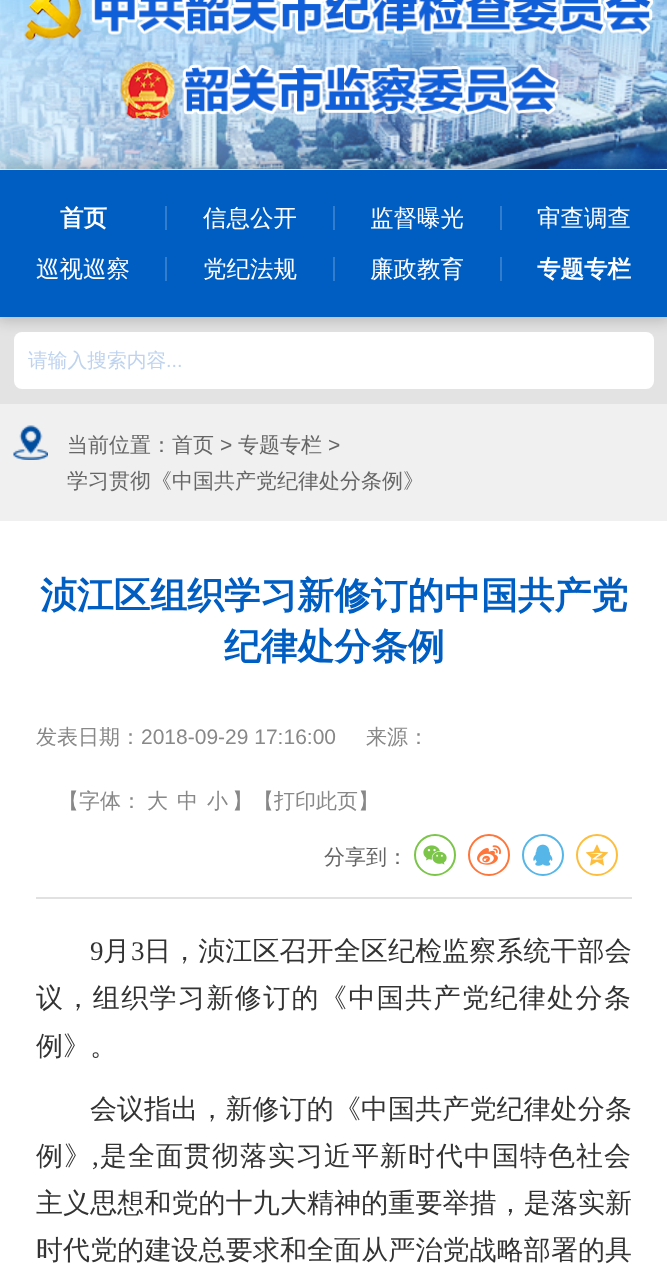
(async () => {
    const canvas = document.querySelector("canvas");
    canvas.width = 667;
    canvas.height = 1283;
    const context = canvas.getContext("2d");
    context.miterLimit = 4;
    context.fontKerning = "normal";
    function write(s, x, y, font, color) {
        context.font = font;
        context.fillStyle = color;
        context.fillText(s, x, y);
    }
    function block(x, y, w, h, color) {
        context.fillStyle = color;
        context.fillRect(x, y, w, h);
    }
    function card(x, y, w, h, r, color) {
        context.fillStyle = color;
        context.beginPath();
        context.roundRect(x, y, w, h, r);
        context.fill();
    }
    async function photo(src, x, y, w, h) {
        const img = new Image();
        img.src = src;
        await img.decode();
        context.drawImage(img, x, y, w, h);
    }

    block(0, 0, 667, 1283, "rgb(255, 255, 255)");
    await photo("media/1.png", 0, 0, 667, 169);
    await photo("media/2.png", 24, 0, 630, 119);
    block(0, 317, 667, 87, "rgb(227, 227, 227)");
    context.fillStyle = "rgba(0, 0, 0, 0.2)";
    context.filter = "blur(7.5px)";
    context.beginPath();
    context.rect(-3, 167, 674, 153);
    context.fill();
    context.filter = "none";
    block(0, 170, 667, 147, "rgb(0, 93, 193)");
    write("首页", 60, 226, "bold 23.5px WenQuanYi Zen Hei", "rgb(255, 255, 255)");
    block(165, 206, 2, 24, "rgb(51, 125, 205)");
    write("信息公开", 203, 226, "500 23.5px WenQuanYi Zen Hei", "rgb(255, 255, 255)");
    block(333, 206, 2, 24, "rgb(51, 125, 205)");
    write("监督曝光", 370, 226, "500 23.5px WenQuanYi Zen Hei", "rgb(255, 255, 255)");
    block(500, 206, 2, 24, "rgb(51, 125, 205)");
    write("审查调查", 537, 226, "500 23.5px WenQuanYi Zen Hei", "rgb(255, 255, 255)");
    write("巡视巡察", 36, 277, "500 23.5px WenQuanYi Zen Hei", "rgb(255, 255, 255)");
    block(165, 257, 2, 24, "rgb(51, 125, 205)");
    write("党纪法规", 203, 277, "500 23.5px WenQuanYi Zen Hei", "rgb(255, 255, 255)");
    block(333, 257, 2, 24, "rgb(51, 125, 205)");
    write("廉政教育", 370, 277, "500 23.5px WenQuanYi Zen Hei", "rgb(255, 255, 255)");
    block(500, 257, 2, 24, "rgb(51, 125, 205)");
    write("专题专栏", 537, 277, "bold 23.5px WenQuanYi Zen Hei", "rgb(255, 255, 255)");
    card(14, 332, 640, 57, 8, "rgb(255, 255, 255)");
    write("请输入搜索内容", 28, 367, "500 19.75px WenQuanYi Zen Hei", "rgb(191, 211, 239)");
    write("...", 166, 367, "19.75px Liberation Sans", "rgb(191, 211, 239)");
    block(0, 404, 667, 117, "rgb(240, 240, 240)");
    await photo("media/3.png", 13, 425, 35, 35);
    write("当前位置：首页", 67, 452, "500 21px WenQuanYi Zen Hei", "rgb(102, 102, 102)");
    write(">", 220, 452, "21px Liberation Sans", "rgb(102, 102, 102)");
    write("专题专栏", 238, 452, "500 21px WenQuanYi Zen Hei", "rgb(102, 102, 102)");
    write(">", 328, 452, "21px Liberation Sans", "rgb(102, 102, 102)");
    write("学习贯彻《中国共产党纪律处分条例》", 67, 488, "500 21px WenQuanYi Zen Hei", "rgb(102, 102, 102)");
    write("浈江区组织学习新修订的中国共产党", 40, 608, "bold 36.75px WenQuanYi Zen Hei", "rgb(0, 93, 193)");
    write("纪律处分条例", 224, 659, "bold 36.75px WenQuanYi Zen Hei", "rgb(0, 93, 193)");
    block(36, 897, 596, 2, "rgb(225, 225, 225)");
    write("发表日期：", 36, 744, "500 21px WenQuanYi Zen Hei", "rgb(136, 136, 136)");
    write("2018-09-29 17:16:00", 141, 744, "21px Liberation Sans", "rgb(136, 136, 136)");
    write("来源：", 366, 744, "500 21px WenQuanYi Zen Hei", "rgb(136, 136, 136)");
    write("【字体：", 58, 808, "500 21px WenQuanYi Zen Hei", "rgb(136, 136, 136)");
    write("大", 147, 808, "500 21px WenQuanYi Zen Hei", "rgb(136, 136, 136)");
    write("中", 177, 808, "500 21px WenQuanYi Zen Hei", "rgb(136, 136, 136)");
    write("小", 207, 808, "500 21px WenQuanYi Zen Hei", "rgb(136, 136, 136)");
    write("】【打印此页】", 232, 808, "500 21px WenQuanYi Zen Hei", "rgb(136, 136, 136)");
    write("分享到：", 324, 864, "500 21px WenQuanYi Zen Hei", "rgb(102, 102, 102)");
    context.beginPath();
    context.arc(435, 855, 20, 0, Math.PI * 2);
    context.strokeStyle = "rgb(123, 197, 73)";
    context.lineWidth = 2;
    context.stroke();
    await photo("media/4.png", 423, 845, 24, 20);
    context.beginPath();
    context.arc(489, 855, 20, 0, Math.PI * 2);
    context.strokeStyle = "rgb(255, 118, 59)";
    context.stroke();
    await photo("media/5.png", 477, 845, 24, 20);
    context.beginPath();
    context.arc(543, 855, 20, 0, Math.PI * 2);
    context.strokeStyle = "rgb(86, 182, 231)";
    context.stroke();
    await photo("media/6.png", 533, 844, 20, 22);
    context.beginPath();
    context.arc(597, 855, 20, 0, Math.PI * 2);
    context.strokeStyle = "rgb(253, 190, 61)";
    context.stroke();
    await photo("media/7.png", 586, 844, 22, 22);
    context.letterSpacing = "0.1px";
    write("9", 90, 960, "27px Liberation Serif", "rgb(51, 51, 51)");
    write("月", 103, 960, "500 27px WenQuanYi Zen Hei", "rgb(51, 51, 51)");
    write("3", 131, 960, "27px Liberation Serif", "rgb(51, 51, 51)");
    write("日，浈江区召开全区纪检监察系统干部会", 144, 960, "500 27px WenQuanYi Zen Hei", "rgb(51, 51, 51)");
    context.letterSpacing = "1.4px";
    write("议，组织学习新修订的《中国共产党纪律处分条", 36, 1007, "500 27px WenQuanYi Zen Hei", "rgb(51, 51, 51)");
    context.letterSpacing = "0px";
    write("例》。", 36, 1055, "500 27px WenQuanYi Zen Hei", "rgb(51, 51, 51)");
    context.letterSpacing = "0.1px";
    write("会议指出，新修订的《中国共产党纪律处分条", 90, 1118, "500 27px WenQuanYi Zen Hei", "rgb(51, 51, 51)");
    context.letterSpacing = "1px";
    write("例》", 36, 1165, "500 27px WenQuanYi Zen Hei", "rgb(51, 51, 51)");
    write(",", 92, 1165, "27px Liberation Serif", "rgb(51, 51, 51)");
    write("是全面贯彻落实习近平新时代中国特色社会", 100, 1165, "500 27px WenQuanYi Zen Hei", "rgb(51, 51, 51)");
    context.letterSpacing = "0.1px";
    write("主义思想和党的十九大精神的重要举措，是落实新", 36, 1212, "500 27px WenQuanYi Zen Hei", "rgb(51, 51, 51)");
    write("时代党的建设总要求和全面从严治党战略部署的具", 36, 1259, "500 27px WenQuanYi Zen Hei", "rgb(51, 51, 51)");
})();
